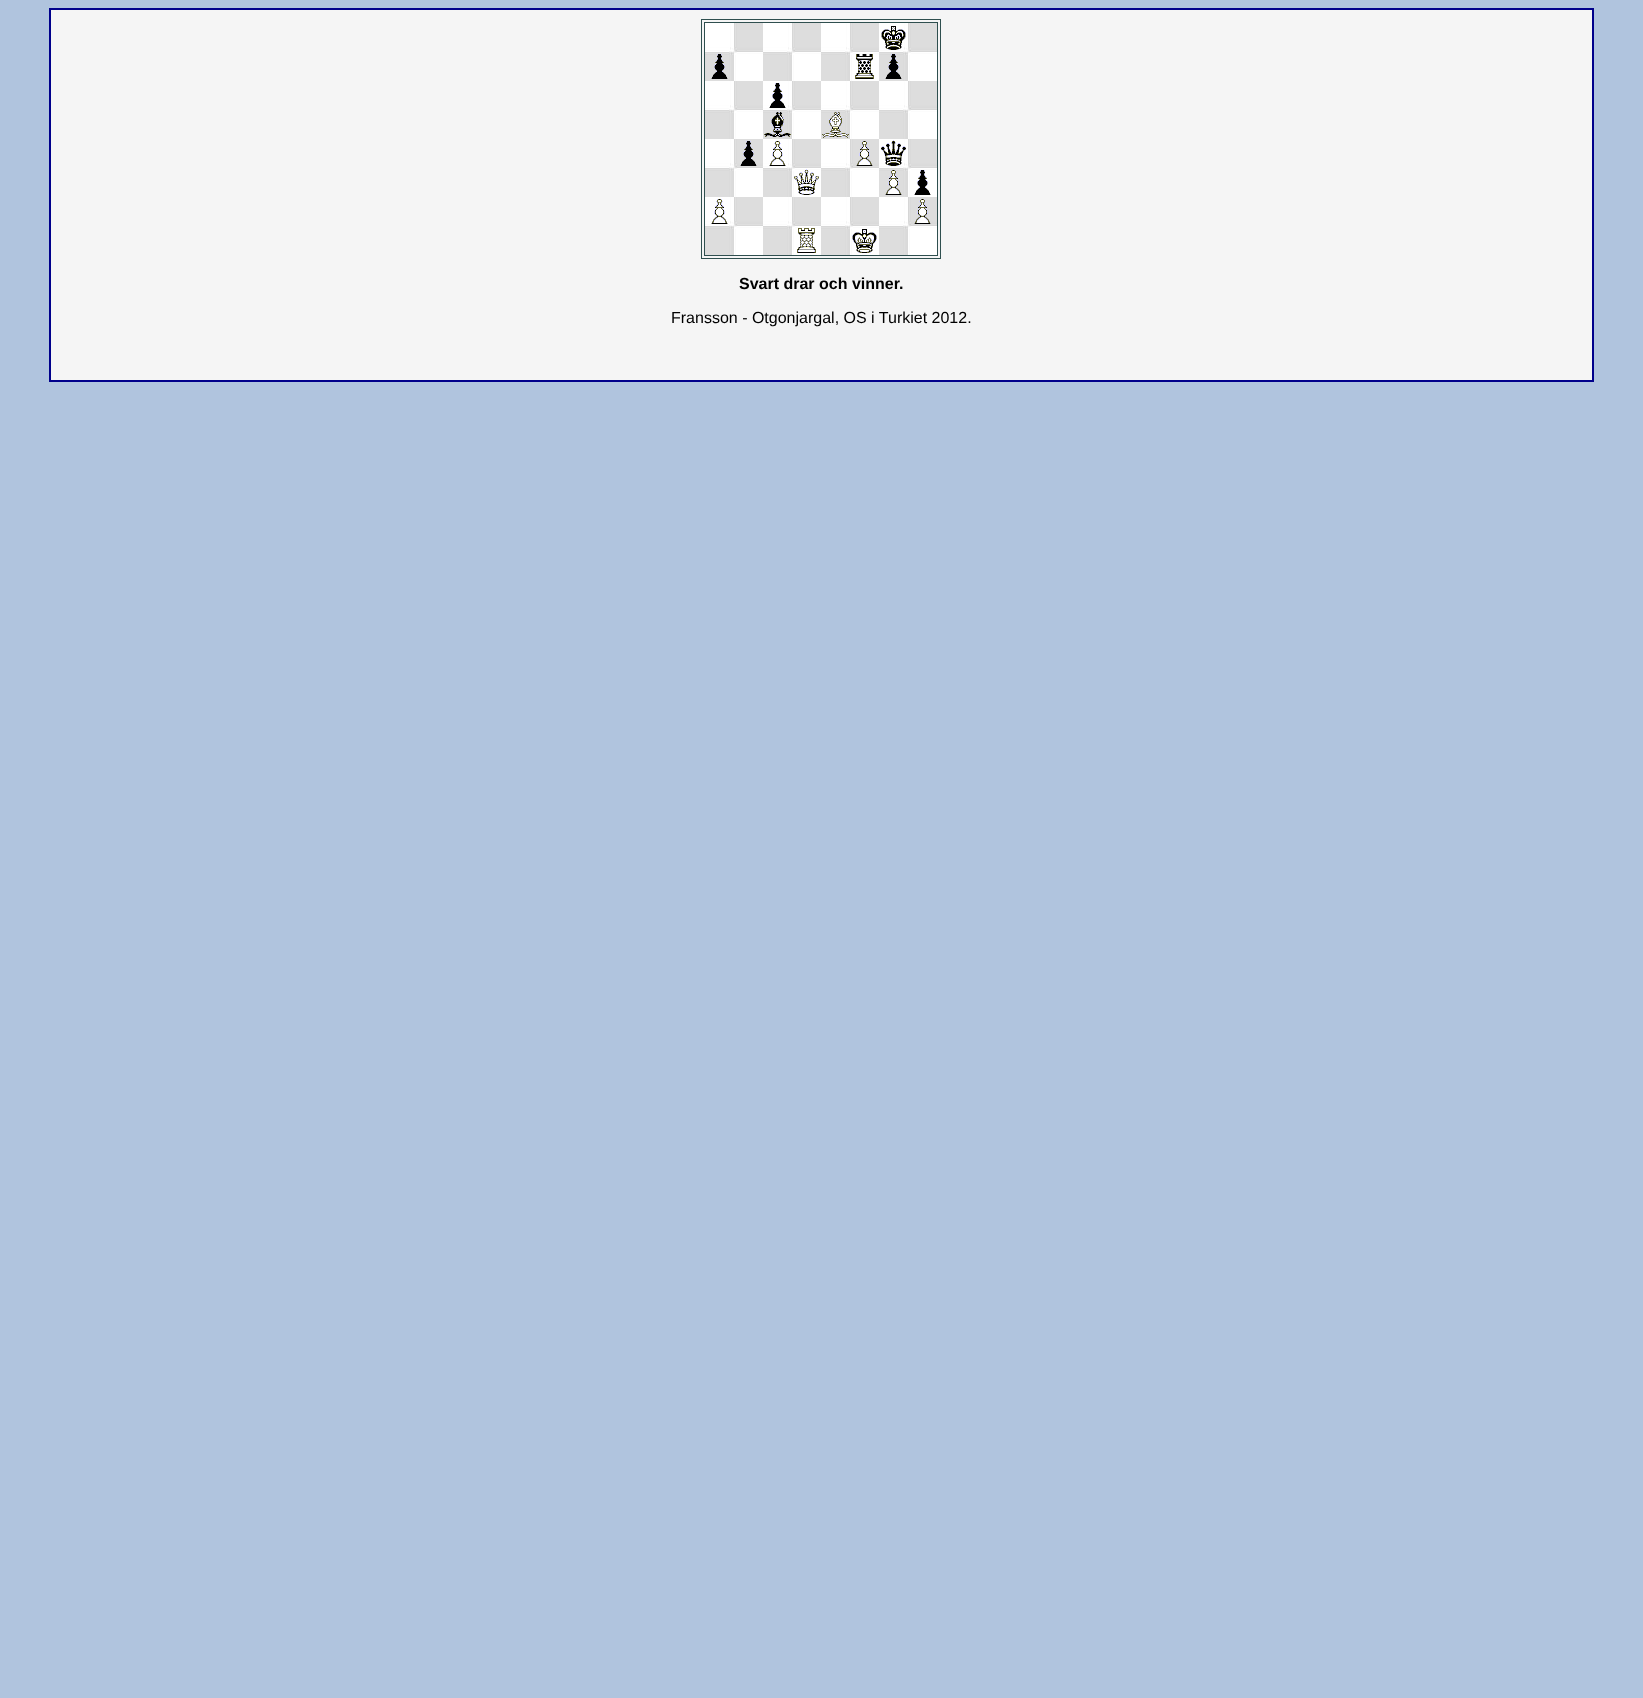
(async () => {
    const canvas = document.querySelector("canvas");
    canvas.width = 1643;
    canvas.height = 1698;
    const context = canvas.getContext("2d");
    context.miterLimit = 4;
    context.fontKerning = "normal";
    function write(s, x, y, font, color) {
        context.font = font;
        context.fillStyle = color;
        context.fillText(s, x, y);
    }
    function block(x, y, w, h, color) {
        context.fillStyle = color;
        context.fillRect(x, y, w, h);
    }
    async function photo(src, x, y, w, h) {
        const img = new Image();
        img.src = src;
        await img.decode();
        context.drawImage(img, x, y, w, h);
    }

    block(0, 0, 1643, 1698, "rgb(176, 196, 222)");
    context.fillStyle = "rgb(245, 245, 245)";
    context.beginPath();
    context.rect(50, 9, 1543, 372);
    context.fill();
    context.strokeStyle = "rgb(0, 0, 139)";
    context.lineWidth = 2;
    context.stroke();
    context.strokeStyle = "rgb(47, 79, 79)";
    context.lineWidth = 1;
    context.strokeRect(701.5, 19.5, 239, 239);
    context.strokeRect(704.5, 22.5, 233, 233);
    await photo("media/1.png", 705, 23, 232, 232);
    await photo("media/2.png", 881, 26, 25, 24);
    await photo("media/3.png", 711, 54, 17, 25);
    await photo("media/4.png", 855, 54, 19, 25);
    await photo("media/3.png", 885, 54, 17, 25);
    await photo("media/5.png", 769, 83, 17, 25);
    await photo("media/6.png", 764, 112, 27, 25);
    await photo("media/7.png", 822, 112, 27, 26);
    await photo("media/8.png", 740, 141, 17, 25);
    await photo("media/9.png", 769, 141, 17, 25);
    await photo("media/10.png", 856, 141, 17, 25);
    await photo("media/11.png", 881, 140, 25, 26);
    await photo("media/12.png", 794, 169, 25, 26);
    await photo("media/13.png", 885, 170, 17, 25);
    await photo("media/14.png", 914, 170, 17, 25);
    await photo("media/9.png", 711, 199, 17, 25);
    await photo("media/10.png", 914, 199, 17, 25);
    await photo("media/15.png", 797, 228, 19, 25);
    await photo("media/16.png", 852, 229, 25, 24);
    write("Svart drar och vinner.", 739, 289, "bold 16px Liberation Sans", "rgb(0, 0, 0)");
    write("Fransson - Otgonjargal, OS i Turkiet 2012.", 671, 323, "16px Liberation Sans", "rgb(0, 0, 0)");
})();
